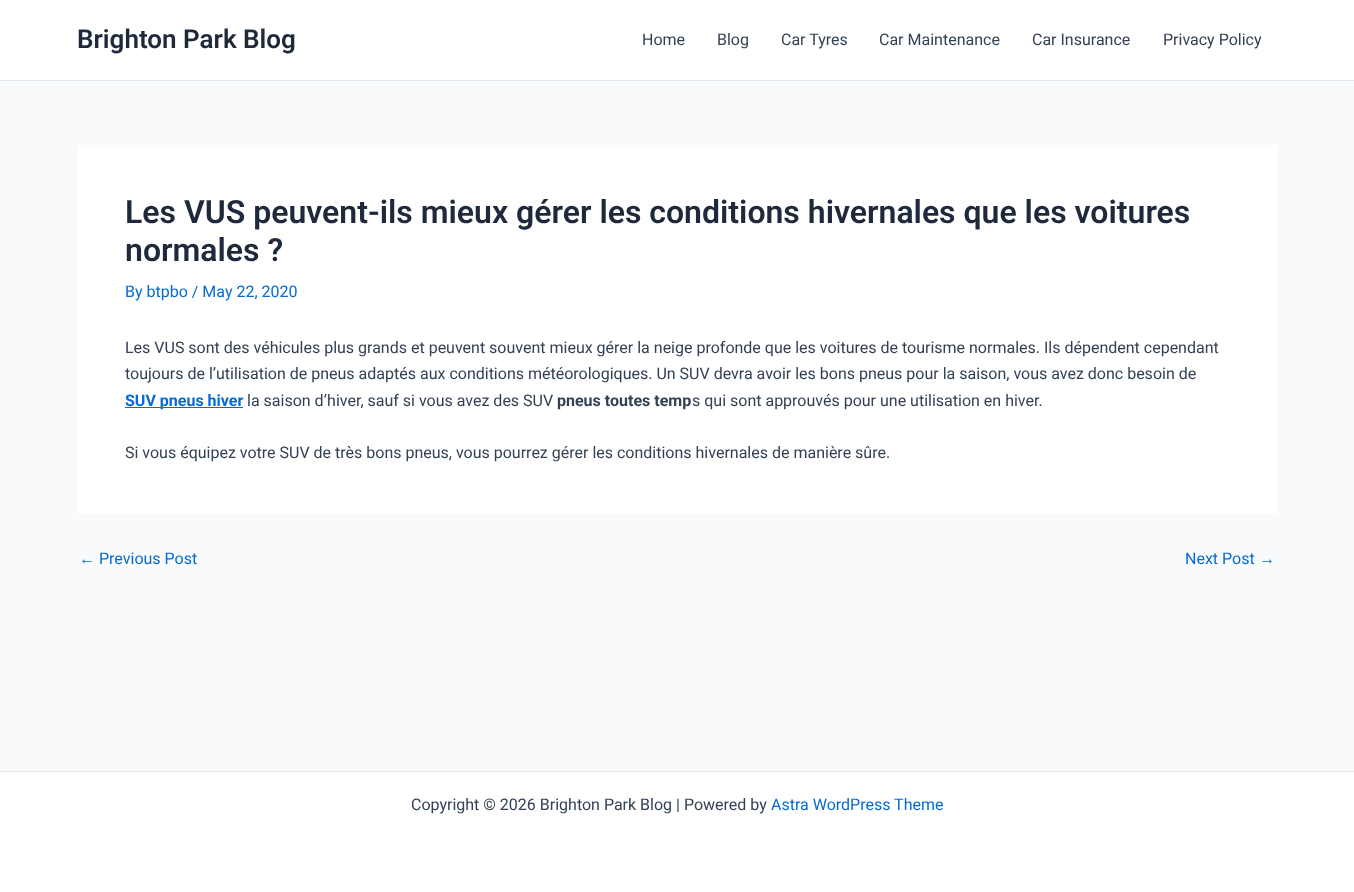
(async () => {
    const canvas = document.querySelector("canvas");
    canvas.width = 1354;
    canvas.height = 892;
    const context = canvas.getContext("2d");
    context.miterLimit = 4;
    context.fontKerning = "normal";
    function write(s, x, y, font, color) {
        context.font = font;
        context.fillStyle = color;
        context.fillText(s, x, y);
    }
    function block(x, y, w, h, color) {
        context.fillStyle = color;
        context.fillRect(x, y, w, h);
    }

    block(0, 0, 1354, 892, "rgb(249, 250, 251)");
    block(0, 0, 1354, 80, "rgb(255, 255, 255)");
    block(0, 80, 1354, 1, "rgb(226, 232, 240)");
    write("Brighton Park Blog", 77, 48, "600 26px Roboto", "rgb(30, 41, 59)");
    write("Home", 642, 45, "16px Roboto", "rgb(51, 65, 85)");
    write("Blog", 717, 45, "16px Roboto", "rgb(51, 65, 85)");
    write("Car Tyres", 781, 45, "16px Roboto", "rgb(51, 65, 85)");
    write("Car Maintenance", 879, 45, "16px Roboto", "rgb(51, 65, 85)");
    write("Car Insurance", 1032, 45, "16px Roboto", "rgb(51, 65, 85)");
    write("Privacy Policy", 1163, 45, "16px Roboto", "rgb(51, 65, 85)");
    block(77, 145, 1200, 369, "rgb(255, 255, 255)");
    write("Les VUS peuvent-ils mieux gérer les conditions hivernales que les voitures", 125, 223, "600 32px Roboto", "rgb(30, 41, 59)");
    write("normales ?", 125, 261, "600 32px Roboto", "rgb(30, 41, 59)");
    write("By btpbo / May 22, 2020", 125, 297, "16px Roboto", "rgb(4, 107, 210)");
    write("Les VUS sont des véhicules plus grands et peuvent souvent mieux gérer la neige profonde que les voitures de tourisme normales. Ils dépendent cependant", 125, 353, "16px Roboto", "rgb(51, 65, 85)");
    write("toujours de l’utilisation de pneus adaptés aux conditions météorologiques. Un SUV devra avoir les bons pneus pour la saison, vous avez donc besoin de", 125, 379, "16px Roboto", "rgb(51, 65, 85)");
    block(125, 407, 118, 1, "rgb(4, 107, 210)");
    write("SUV pneus hiver", 125, 406, "bold 16px Roboto", "rgb(4, 107, 210)");
    write("la saison d’hiver, sauf si vous avez des SUV", 247, 406, "16px Roboto", "rgb(51, 65, 85)");
    write("pneus toutes temp", 557, 406, "bold 16px Roboto", "rgb(51, 65, 85)");
    write("s qui sont approuvés pour une utilisation en hiver.", 692, 406, "16px Roboto", "rgb(51, 65, 85)");
    write("Si vous équipez votre SUV de très bons pneus, vous pourrez gérer les conditions hivernales de manière sûre.", 125, 458, "16px Roboto", "rgb(51, 65, 85)");
    write("←", 79, 564, "16px Liberation Sans", "rgb(4, 107, 210)");
    write("Previous Post", 99, 564, "16px Roboto", "rgb(4, 107, 210)");
    write("Next Post", 1185, 564, "16px Roboto", "rgb(4, 107, 210)");
    write("→", 1259, 564, "16px Liberation Sans", "rgb(4, 107, 210)");
    block(0, 772, 1354, 120, "rgb(255, 255, 255)");
    block(0, 771, 1354, 1, "rgb(226, 232, 240)");
    write("Copyright © 2026 Brighton Park Blog | Powered by", 411, 810, "16px Roboto", "rgb(51, 65, 85)");
    write("Astra WordPress Theme", 771, 810, "16px Roboto", "rgb(4, 107, 210)");
})();
